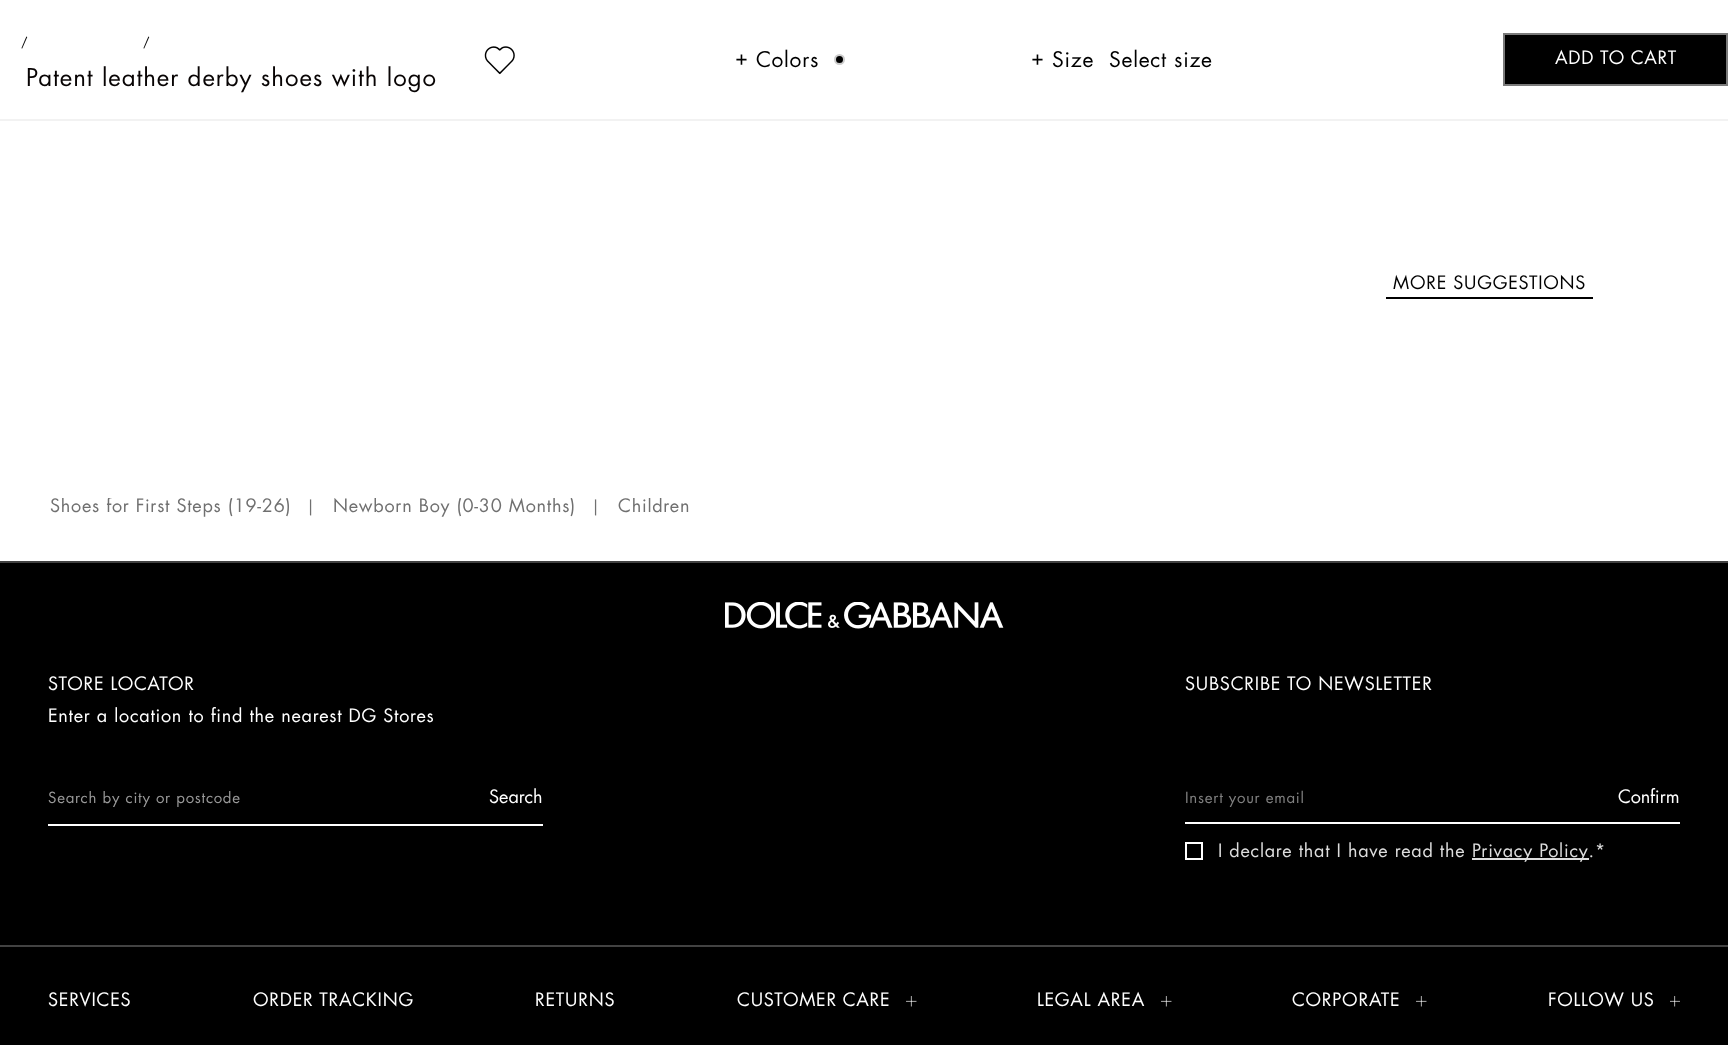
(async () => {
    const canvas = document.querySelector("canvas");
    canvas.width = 1728;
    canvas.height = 1045;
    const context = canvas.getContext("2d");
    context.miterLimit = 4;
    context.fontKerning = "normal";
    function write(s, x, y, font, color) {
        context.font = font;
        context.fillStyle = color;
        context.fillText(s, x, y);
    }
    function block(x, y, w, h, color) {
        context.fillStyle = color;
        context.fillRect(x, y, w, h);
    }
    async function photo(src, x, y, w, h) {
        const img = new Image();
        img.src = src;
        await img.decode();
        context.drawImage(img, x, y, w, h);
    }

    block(0, 0, 1728, 1045, "rgb(255, 255, 255)");
    block(0, 119, 1728, 2, "rgb(242, 242, 242)");
    context.letterSpacing = "1px";
    write("/", 21, 47, "500 12px Futura", "rgb(0, 0, 0)");
    write("/", 143, 47, "500 12px Futura", "rgb(0, 0, 0)");
    context.letterSpacing = "0.95px";
    write("Patent leather derby shoes with logo", 26, 86, "24px Futura", "rgb(8, 4, 4)");
    await photo("media/1.png", 484, 46, 31, 29);
    context.letterSpacing = "0.75px";
    write("+", 735, 65, "21px Futura", "rgb(0, 0, 0)");
    write("Colors", 756, 67, "21px Futura", "rgb(0, 0, 0)");
    context.beginPath();
    context.arc(839.5, 59.5, 4.5, 0, Math.PI * 2);
    context.fill();
    context.strokeStyle = "rgb(204, 204, 204)";
    context.lineWidth = 2;
    context.stroke();
    write("+", 1031, 65, "21px Futura", "rgb(0, 0, 0)");
    write("Size", 1052, 67, "21px Futura", "rgb(0, 0, 0)");
    write("Select size", 1109, 67, "21px Futura", "rgb(0, 0, 0)");
    context.beginPath();
    context.rect(1504, 34, 223, 51);
    context.fill();
    context.strokeStyle = "rgb(122, 122, 122)";
    context.stroke();
    write("ADD TO CART", 1555, 64, "18px Futura", "rgb(255, 255, 255)");
    write("MORE SUGGESTIONS", 1393, 289, "18px Futura", "rgb(0, 0, 0)");
    block(1386, 297, 207, 2, "rgb(0, 0, 0)");
    context.save();
    context.beginPath();
    context.rect(50, 498, 241, 20);
    context.clip();
    write("Shoes for First Steps (19-26)", 50, 512, "18px Futura", "rgb(112, 112, 112)");
    context.restore();
    write("|", 306, 512, "16px Futura", "rgb(112, 112, 112)");
    context.save();
    context.beginPath();
    context.rect(333, 498, 243, 20);
    context.clip();
    write("Newborn Boy (0-30 Months)", 333, 512, "18px Futura", "rgb(112, 112, 112)");
    context.restore();
    write("|", 591, 512, "16px Futura", "rgb(112, 112, 112)");
    context.save();
    context.beginPath();
    context.rect(618, 498, 72, 20);
    context.clip();
    write("Children", 618, 512, "18px Futura", "rgb(112, 112, 112)");
    context.restore();
    block(0, 563, 1728, 482, "rgb(0, 0, 0)");
    block(0, 561, 1728, 2, "rgb(66, 66, 66)");
    await photo("media/2.png", 725, 602, 279, 27);
    write("STORE LOCATOR", 48, 690, "18px Futura", "rgb(255, 255, 255)");
    write("Enter a location to find the nearest DG Stores", 48, 722, "18px Futura", "rgb(255, 255, 255)");
    block(48, 824, 495, 2, "rgb(255, 255, 255)");
    context.save();
    context.beginPath();
    context.rect(48, 791, 426, 18);
    context.clip();
    write("Search by city or postcode", 48, 803, "15px Futura", "rgb(153, 153, 153)");
    context.restore();
    context.letterSpacing = "0px";
    write("Search", 489, 803, "18px Futura", "rgb(255, 255, 255)");
    context.letterSpacing = "0.75px";
    write("SUBSCRIBE TO NEWSLETTER", 1185, 690, "18px Futura", "rgb(255, 255, 255)");
    block(1185, 822, 495, 2, "rgb(255, 255, 255)");
    write("Insert your email", 1185, 803, "15px Futura", "rgb(128, 128, 128)");
    context.letterSpacing = "0px";
    write("Confirm", 1618, 803, "18px Futura", "rgb(255, 255, 255)");
    context.strokeStyle = "rgb(255, 255, 255)";
    context.strokeRect(1186, 843, 16, 16);
    context.letterSpacing = "0.75px";
    write("I declare that I have read the", 1218, 857, "18px Futura", "rgb(221, 221, 221)");
    block(1472, 858, 117, 2, "rgb(221, 221, 221)");
    write("Privacy Policy.*", 1472, 857, "18px Futura", "rgb(221, 221, 221)");
    block(0, 945, 1728, 2, "rgb(66, 66, 66)");
    write("SERVICES", 48, 1006, "18px Futura", "rgb(255, 255, 255)");
    write("ORDER TRACKING", 253, 1006, "18px Futura", "rgb(255, 255, 255)");
    write("RETURNS", 535, 1006, "18px Futura", "rgb(255, 255, 255)");
    write("CUSTOMER CARE", 737, 1006, "18px Futura", "rgb(255, 255, 255)");
    await photo("media/3.png", 906, 996, 11, 11);
    write("LEGAL AREA", 1037, 1006, "18px Futura", "rgb(255, 255, 255)");
    await photo("media/3.png", 1161, 996, 11, 11);
    write("CORPORATE", 1292, 1006, "18px Futura", "rgb(255, 255, 255)");
    await photo("media/3.png", 1416, 996, 11, 11);
    write("FOLLOW US", 1548, 1006, "18px Futura", "rgb(255, 255, 255)");
    await photo("media/4.png", 1670, 996, 10, 11);
})();
